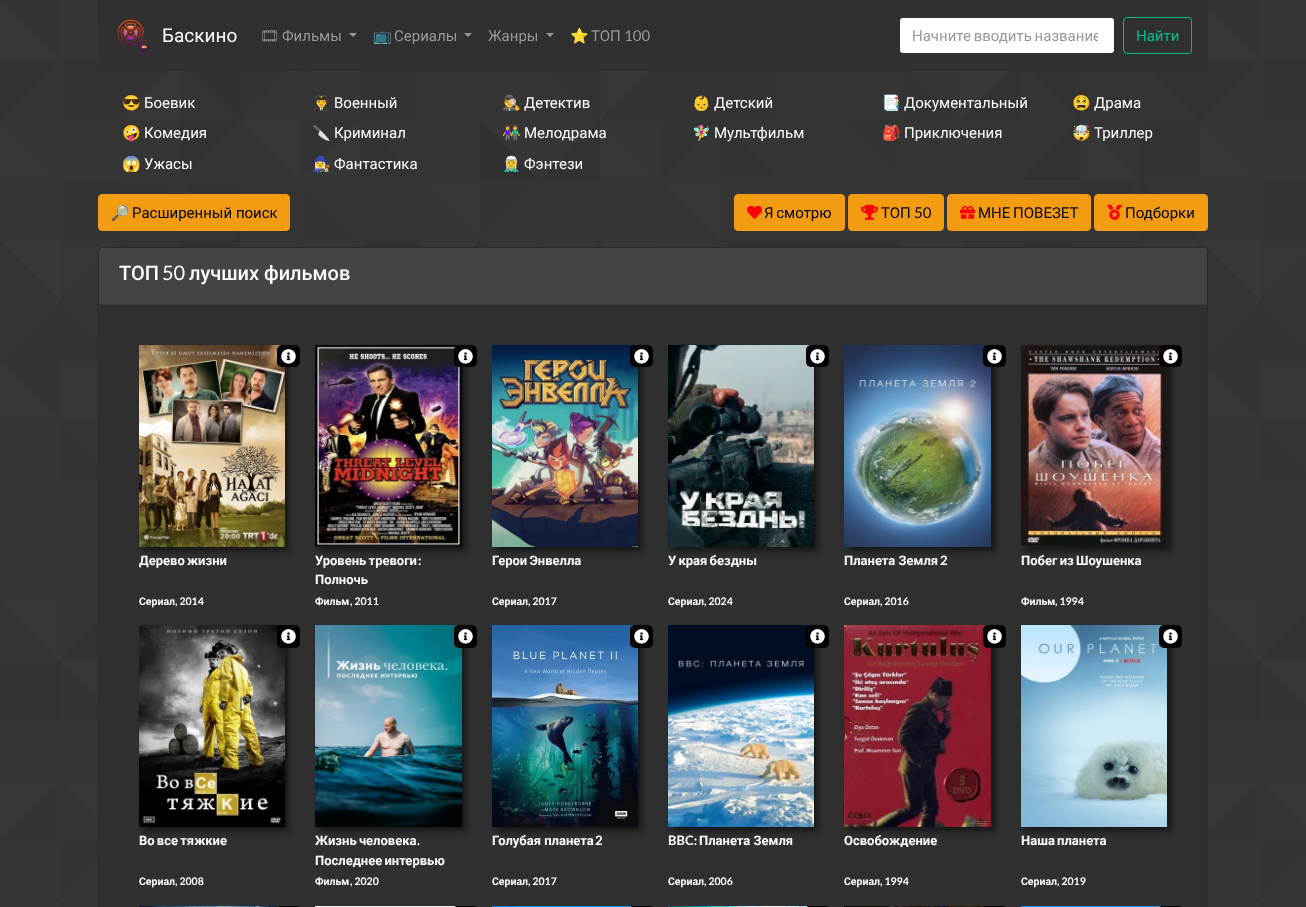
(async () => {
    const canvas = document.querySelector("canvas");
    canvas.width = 1306;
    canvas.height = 907;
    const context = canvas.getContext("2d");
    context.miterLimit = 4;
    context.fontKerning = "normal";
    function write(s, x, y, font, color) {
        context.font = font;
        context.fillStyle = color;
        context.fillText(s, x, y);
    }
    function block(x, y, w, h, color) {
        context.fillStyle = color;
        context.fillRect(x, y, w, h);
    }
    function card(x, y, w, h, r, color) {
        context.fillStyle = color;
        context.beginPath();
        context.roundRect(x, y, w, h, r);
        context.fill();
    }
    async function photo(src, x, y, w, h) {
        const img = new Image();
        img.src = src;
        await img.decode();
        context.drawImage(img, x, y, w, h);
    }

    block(0, 0, 1306, 907, "rgb(255, 255, 255)");
    await photo("media/1.png", 0, 0, 1306, 907);
    block(98, 0, 1110, 71, "rgb(48, 48, 48)");
    await photo("media/2.png", 117, 19, 31, 32);
    write("Баскино", 162, 42, "19px Roboto", "rgb(255, 255, 255)");
    write("🎞", 260, 41, "15px Noto Emoji", "rgb(152, 152, 152)");
    write("Фильмы", 282, 41, "15px Roboto", "rgb(152, 152, 152)");
    context.beginPath();
    context.moveTo(349, 33);
    context.lineTo(357, 33);
    context.lineTo(353, 37);
    context.closePath();
    context.fill();
    write("📺", 373, 41, "15px Noto Color Emoji", "rgb(152, 152, 152)");
    write("Сериалы", 394, 41, "15px Roboto", "rgb(152, 152, 152)");
    context.beginPath();
    context.moveTo(464, 33);
    context.lineTo(472, 33);
    context.lineTo(468, 37);
    context.closePath();
    context.fill();
    write("Жанры", 488, 41, "15px Roboto", "rgb(152, 152, 152)");
    context.beginPath();
    context.moveTo(546, 33);
    context.lineTo(554, 33);
    context.lineTo(550, 37);
    context.closePath();
    context.fill();
    write("⭐", 570, 41, "15px Noto Color Emoji", "rgb(152, 152, 152)");
    write("ТОП", 591, 41, "15px Roboto", "rgb(152, 152, 152)");
    write("100", 624, 41, "15px Lato", "rgb(152, 152, 152)");
    card(900, 18, 214, 35, 3, "rgb(255, 255, 255)");
    context.save();
    context.beginPath();
    context.rect(912, 26, 186, 19);
    context.clip();
    context.wordSpacing = "-1px";
    write("Начните вводить название", 912, 41, "15px Roboto", "rgb(152, 152, 152)");
    context.restore();
    context.beginPath();
    context.roundRect(1123.5, 17.5, 68, 36, 3.5);
    context.strokeStyle = "rgb(0, 188, 140)";
    context.stroke();
    write("Найти", 1136, 41, "15px Roboto", "rgb(0, 188, 140)");
    write("😎", 122, 108, "15px Noto Color Emoji", "rgb(255, 255, 255)");
    write("Боевик", 144, 108, "15px Roboto", "rgb(255, 255, 255)");
    write("👨‍✈️", 312, 108, "15px Noto Color Emoji", "rgb(255, 255, 255)");
    write("Военный", 334, 108, "15px Roboto", "rgb(255, 255, 255)");
    write("🕵️‍♂️", 502, 108, "15px Noto Color Emoji", "rgb(255, 255, 255)");
    write("Детектив", 524, 108, "15px Roboto", "rgb(255, 255, 255)");
    write("👶", 692, 108, "15px Noto Color Emoji", "rgb(255, 255, 255)");
    write("Детский", 714, 108, "15px Roboto", "rgb(255, 255, 255)");
    write("📑", 882, 108, "15px Noto Color Emoji", "rgb(255, 255, 255)");
    write("Документальный", 904, 108, "15px Roboto", "rgb(255, 255, 255)");
    write("😫", 1072, 108, "15px Noto Color Emoji", "rgb(255, 255, 255)");
    write("Драма", 1094, 108, "15px Roboto", "rgb(255, 255, 255)");
    write("🤪", 122, 138, "15px Noto Color Emoji", "rgb(255, 255, 255)");
    write("Комедия", 144, 138, "15px Roboto", "rgb(255, 255, 255)");
    write("🔪", 312, 138, "15px Noto Color Emoji", "rgb(255, 255, 255)");
    write("Криминал", 334, 138, "15px Roboto", "rgb(255, 255, 255)");
    write("👫", 502, 138, "15px Noto Color Emoji", "rgb(255, 255, 255)");
    write("Мелодрама", 524, 138, "15px Roboto", "rgb(255, 255, 255)");
    write("🧚‍♀️", 692, 138, "15px Noto Color Emoji", "rgb(255, 255, 255)");
    write("Мультфильм", 714, 138, "15px Roboto", "rgb(255, 255, 255)");
    write("🎒", 882, 138, "15px Noto Color Emoji", "rgb(255, 255, 255)");
    write("Приключения", 904, 138, "15px Roboto", "rgb(255, 255, 255)");
    write("🤯", 1072, 138, "15px Noto Color Emoji", "rgb(255, 255, 255)");
    write("Триллер", 1094, 138, "15px Roboto", "rgb(255, 255, 255)");
    write("😱", 122, 169, "15px Noto Color Emoji", "rgb(255, 255, 255)");
    write("Ужасы", 144, 169, "15px Roboto", "rgb(255, 255, 255)");
    write("🧙‍♀️", 312, 169, "15px Noto Color Emoji", "rgb(255, 255, 255)");
    write("Фантастика", 334, 169, "15px Roboto", "rgb(255, 255, 255)");
    write("🧝‍♂️", 502, 169, "15px Noto Color Emoji", "rgb(255, 255, 255)");
    write("Фэнтези", 524, 169, "15px Roboto", "rgb(255, 255, 255)");
    context.fillStyle = "rgb(243, 156, 18)";
    context.beginPath();
    context.roundRect(98.5, 194.5, 191, 36, 3.5);
    context.fill();
    context.strokeStyle = "rgb(243, 156, 18)";
    context.stroke();
    write("🔎", 111, 218, "15px Noto Color Emoji", "rgb(0, 0, 0)");
    write("Расширенный поиск", 132, 218, "15px Roboto", "rgb(0, 0, 0)");
    context.fillStyle = "rgb(243, 156, 18)";
    context.beginPath();
    context.roundRect(734.5, 194.5, 110, 36, 3.5);
    context.fill();
    context.stroke();
    await photo("media/3.png", 747, 205, 15, 14);
    context.wordSpacing = "-1px";
    write("Я смотрю", 764, 218, "15px Roboto", "rgb(0, 0, 0)");
    context.fillStyle = "rgb(243, 156, 18)";
    context.beginPath();
    context.roundRect(848.5, 194.5, 95, 36, 3.5);
    context.fill();
    context.stroke();
    await photo("media/4.png", 861, 204, 17, 16);
    context.wordSpacing = "0px";
    write("ТОП", 881, 218, "15px Roboto", "rgb(0, 0, 0)");
    write("50", 914, 218, "15px Lato", "rgb(0, 0, 0)");
    context.fillStyle = "rgb(243, 156, 18)";
    context.beginPath();
    context.roundRect(947.5, 194.5, 143, 36, 3.5);
    context.fill();
    context.stroke();
    await photo("media/5.png", 960, 205, 15, 14);
    context.wordSpacing = "-1px";
    write("МНЕ ПОВЕЗЕТ", 978, 218, "15px Roboto", "rgb(0, 0, 0)");
    context.fillStyle = "rgb(243, 156, 18)";
    context.beginPath();
    context.roundRect(1094.5, 194.5, 113, 36, 3.5);
    context.fill();
    context.stroke();
    await photo("media/6.png", 1107, 204, 15, 16);
    context.wordSpacing = "0px";
    write("Подборки", 1125, 218, "15px Roboto", "rgb(0, 0, 0)");
    context.fillStyle = "rgb(48, 48, 48)";
    context.beginPath();
    context.roundRect(98.5, 247.5, 1109, 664, 3.5);
    context.fill();
    context.strokeStyle = "rgb(42, 42, 42)";
    context.stroke();
    context.fillStyle = "rgb(68, 68, 68)";
    context.beginPath();
    context.roundRect(99, 248, 1108, 57, [3, 3, 0, 0]);
    context.fill();
    block(99, 304, 1108, 1, "rgb(60, 60, 60)");
    write("ТОП", 119, 280, "500 20px Roboto", "rgb(255, 255, 255)");
    write("50", 162, 280, "20px Lato", "rgb(255, 255, 255)");
    write("лучших фильмов", 189, 280, "500 20px Roboto", "rgb(255, 255, 255)");
    context.fillStyle = "rgba(0, 0, 0, 0.54)";
    context.filter = "blur(3px)";
    context.beginPath();
    context.rect(143, 349, 146, 202);
    context.fill();
    context.filter = "none";
    await photo("media/7.png", 139, 345, 146, 202);
    card(277, 345, 23, 22, 5, "rgb(0, 0, 0)");
    await photo("media/8.png", 281, 349, 15, 15);
    context.wordSpacing = "-1px";
    write("Дерево жизни", 139, 565, "bold 13px Roboto", "rgb(255, 255, 255)");
    context.wordSpacing = "0px";
    write("Сериал", 139, 605, "bold 10.5px Roboto", "rgb(255, 255, 255)");
    write(", 2014", 175, 605, "bold 10.5px Lato", "rgb(255, 255, 255)");
    context.fillStyle = "rgba(0, 0, 0, 0.54)";
    context.filter = "blur(3px)";
    context.beginPath();
    context.rect(319, 349, 147, 202);
    context.fill();
    context.filter = "none";
    await photo("media/9.png", 315, 345, 147, 202);
    card(454, 345, 23, 22, 5, "rgb(0, 0, 0)");
    await photo("media/8.png", 458, 349, 15, 15);
    context.wordSpacing = "-1px";
    write("Уровень тревоги", 315, 565, "bold 13px Roboto", "rgb(255, 255, 255)");
    context.wordSpacing = "0px";
    write(":", 418, 565, "bold 13px Lato", "rgb(255, 255, 255)");
    write("Полночь", 315, 584, "bold 13px Roboto", "rgb(255, 255, 255)");
    write("Фильм", 315, 605, "bold 10.5px Roboto", "rgb(255, 255, 255)");
    write(", 2011", 350, 605, "bold 10.5px Lato", "rgb(255, 255, 255)");
    context.fillStyle = "rgba(0, 0, 0, 0.54)";
    context.filter = "blur(3px)";
    context.beginPath();
    context.rect(496, 349, 146, 202);
    context.fill();
    context.filter = "none";
    await photo("media/10.png", 492, 345, 146, 202);
    card(630, 345, 23, 22, 5, "rgb(0, 0, 0)");
    await photo("media/8.png", 634, 349, 15, 15);
    context.wordSpacing = "-1px";
    write("Герои Энвелла", 492, 565, "bold 13px Roboto", "rgb(255, 255, 255)");
    context.wordSpacing = "0px";
    write("Сериал", 492, 605, "bold 10.5px Roboto", "rgb(255, 255, 255)");
    write(", 2017", 528, 605, "bold 10.5px Lato", "rgb(255, 255, 255)");
    context.fillStyle = "rgba(0, 0, 0, 0.54)";
    context.filter = "blur(3px)";
    context.beginPath();
    context.rect(672, 349, 146, 202);
    context.fill();
    context.filter = "none";
    await photo("media/11.png", 668, 345, 146, 202);
    card(806, 345, 23, 22, 5, "rgb(0, 0, 0)");
    await photo("media/8.png", 810, 349, 15, 15);
    context.wordSpacing = "-1px";
    write("У края бездны", 668, 565, "bold 13px Roboto", "rgb(255, 255, 255)");
    context.wordSpacing = "0px";
    write("Сериал", 668, 605, "bold 10.5px Roboto", "rgb(255, 255, 255)");
    write(", 2024", 704, 605, "bold 10.5px Lato", "rgb(255, 255, 255)");
    context.fillStyle = "rgba(0, 0, 0, 0.54)";
    context.filter = "blur(3px)";
    context.beginPath();
    context.rect(848, 349, 147, 202);
    context.fill();
    context.filter = "none";
    await photo("media/12.png", 844, 345, 147, 202);
    card(983, 345, 23, 22, 5, "rgb(0, 0, 0)");
    await photo("media/8.png", 987, 349, 15, 15);
    write("Планета Земля", 844, 565, "bold 13px Roboto", "rgb(255, 255, 255)");
    write("2", 940, 565, "bold 13px Lato", "rgb(255, 255, 255)");
    write("Сериал", 844, 605, "bold 10.5px Roboto", "rgb(255, 255, 255)");
    write(", 2016", 880, 605, "bold 10.5px Lato", "rgb(255, 255, 255)");
    context.fillStyle = "rgba(0, 0, 0, 0.54)";
    context.filter = "blur(3px)";
    context.beginPath();
    context.rect(1025, 349, 146, 202);
    context.fill();
    context.filter = "none";
    await photo("media/13.png", 1021, 345, 146, 202);
    card(1159, 345, 23, 22, 5, "rgb(0, 0, 0)");
    await photo("media/8.png", 1163, 349, 15, 15);
    context.wordSpacing = "-1px";
    write("Побег из Шоушенка", 1021, 565, "bold 13px Roboto", "rgb(255, 255, 255)");
    context.wordSpacing = "0px";
    write("Фильм", 1021, 605, "bold 10.5px Roboto", "rgb(255, 255, 255)");
    write(", 1994", 1055, 605, "bold 10.5px Lato", "rgb(255, 255, 255)");
    context.fillStyle = "rgba(0, 0, 0, 0.54)";
    context.filter = "blur(3px)";
    context.beginPath();
    context.rect(143, 629, 146, 202);
    context.fill();
    context.filter = "none";
    await photo("media/14.png", 139, 625, 146, 202);
    card(277, 625, 23, 23, 5, "rgb(0, 0, 0)");
    await photo("media/8.png", 281, 629, 15, 15);
    context.wordSpacing = "-1px";
    write("Во все тяжкие", 139, 845, "bold 13px Roboto", "rgb(255, 255, 255)");
    context.wordSpacing = "0px";
    write("Сериал", 139, 885, "bold 10.5px Roboto", "rgb(255, 255, 255)");
    write(", 2008", 175, 885, "bold 10.5px Lato", "rgb(255, 255, 255)");
    context.fillStyle = "rgba(0, 0, 0, 0.54)";
    context.filter = "blur(3px)";
    context.beginPath();
    context.rect(319, 629, 147, 202);
    context.fill();
    context.filter = "none";
    await photo("media/15.png", 315, 625, 147, 202);
    card(454, 625, 23, 23, 5, "rgb(0, 0, 0)");
    await photo("media/8.png", 458, 629, 15, 15);
    context.wordSpacing = "-1px";
    write("Жизнь человека", 315, 845, "bold 13px Roboto", "rgb(255, 255, 255)");
    context.wordSpacing = "0px";
    write(".", 417, 845, "bold 13px Lato", "rgb(255, 255, 255)");
    context.wordSpacing = "-1px";
    write("Последнее интервью", 315, 865, "bold 13px Roboto", "rgb(255, 255, 255)");
    context.wordSpacing = "0px";
    write("Фильм", 315, 885, "bold 10.5px Roboto", "rgb(255, 255, 255)");
    write(", 2020", 350, 885, "bold 10.5px Lato", "rgb(255, 255, 255)");
    context.fillStyle = "rgba(0, 0, 0, 0.54)";
    context.filter = "blur(3px)";
    context.beginPath();
    context.rect(496, 629, 146, 202);
    context.fill();
    context.filter = "none";
    await photo("media/16.png", 492, 625, 146, 202);
    card(630, 625, 23, 23, 5, "rgb(0, 0, 0)");
    await photo("media/8.png", 634, 629, 15, 15);
    write("Голубая планета", 492, 845, "bold 13px Roboto", "rgb(255, 255, 255)");
    write("2", 595, 845, "bold 13px Lato", "rgb(255, 255, 255)");
    write("Сериал", 492, 885, "bold 10.5px Roboto", "rgb(255, 255, 255)");
    write(", 2017", 528, 885, "bold 10.5px Lato", "rgb(255, 255, 255)");
    context.fillStyle = "rgba(0, 0, 0, 0.54)";
    context.filter = "blur(3px)";
    context.beginPath();
    context.rect(672, 629, 146, 202);
    context.fill();
    context.filter = "none";
    await photo("media/17.png", 668, 625, 146, 202);
    card(806, 625, 23, 23, 5, "rgb(0, 0, 0)");
    await photo("media/8.png", 810, 629, 15, 15);
    write("BBC:", 668, 845, "bold 13px Lato", "rgb(255, 255, 255)");
    write("Планета Земля", 699, 845, "bold 13px Roboto", "rgb(255, 255, 255)");
    write("Сериал", 668, 885, "bold 10.5px Roboto", "rgb(255, 255, 255)");
    write(", 2006", 704, 885, "bold 10.5px Lato", "rgb(255, 255, 255)");
    context.fillStyle = "rgba(0, 0, 0, 0.54)";
    context.filter = "blur(3px)";
    context.beginPath();
    context.rect(848, 629, 147, 202);
    context.fill();
    context.filter = "none";
    await photo("media/18.png", 844, 625, 147, 202);
    card(983, 625, 23, 23, 5, "rgb(0, 0, 0)");
    await photo("media/8.png", 987, 629, 15, 15);
    write("Освобождение", 844, 845, "bold 13px Roboto", "rgb(255, 255, 255)");
    write("Сериал", 844, 885, "bold 10.5px Roboto", "rgb(255, 255, 255)");
    write(", 1994", 880, 885, "bold 10.5px Lato", "rgb(255, 255, 255)");
    context.fillStyle = "rgba(0, 0, 0, 0.54)";
    context.filter = "blur(3px)";
    context.beginPath();
    context.rect(1025, 629, 146, 202);
    context.fill();
    context.filter = "none";
    await photo("media/19.png", 1021, 625, 146, 202);
    card(1159, 625, 23, 23, 5, "rgb(0, 0, 0)");
    await photo("media/8.png", 1163, 629, 15, 15);
    context.wordSpacing = "-1px";
    write("Наша планета", 1021, 845, "bold 13px Roboto", "rgb(255, 255, 255)");
    context.wordSpacing = "0px";
    write("Сериал", 1021, 885, "bold 10.5px Roboto", "rgb(255, 255, 255)");
    write(", 2019", 1057, 885, "bold 10.5px Lato", "rgb(255, 255, 255)");
    await photo("media/20.png", 139, 906, 143, 1);
    card(277, 906, 23, 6, 5, "rgb(0, 0, 0)");
    block(315, 906, 147, 1, "rgb(239, 239, 239)");
    card(454, 906, 23, 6, 5, "rgb(0, 0, 0)");
    await photo("media/21.png", 492, 906, 143, 1);
    card(630, 906, 23, 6, 5, "rgb(0, 0, 0)");
    await photo("media/22.png", 668, 906, 143, 1);
    card(806, 906, 23, 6, 5, "rgb(0, 0, 0)");
    await photo("media/23.png", 844, 906, 144, 1);
    card(983, 906, 23, 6, 5, "rgb(0, 0, 0)");
    block(1021, 906, 146, 1, "rgb(39, 154, 249)");
    card(1159, 906, 23, 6, 5, "rgb(0, 0, 0)");
})();
